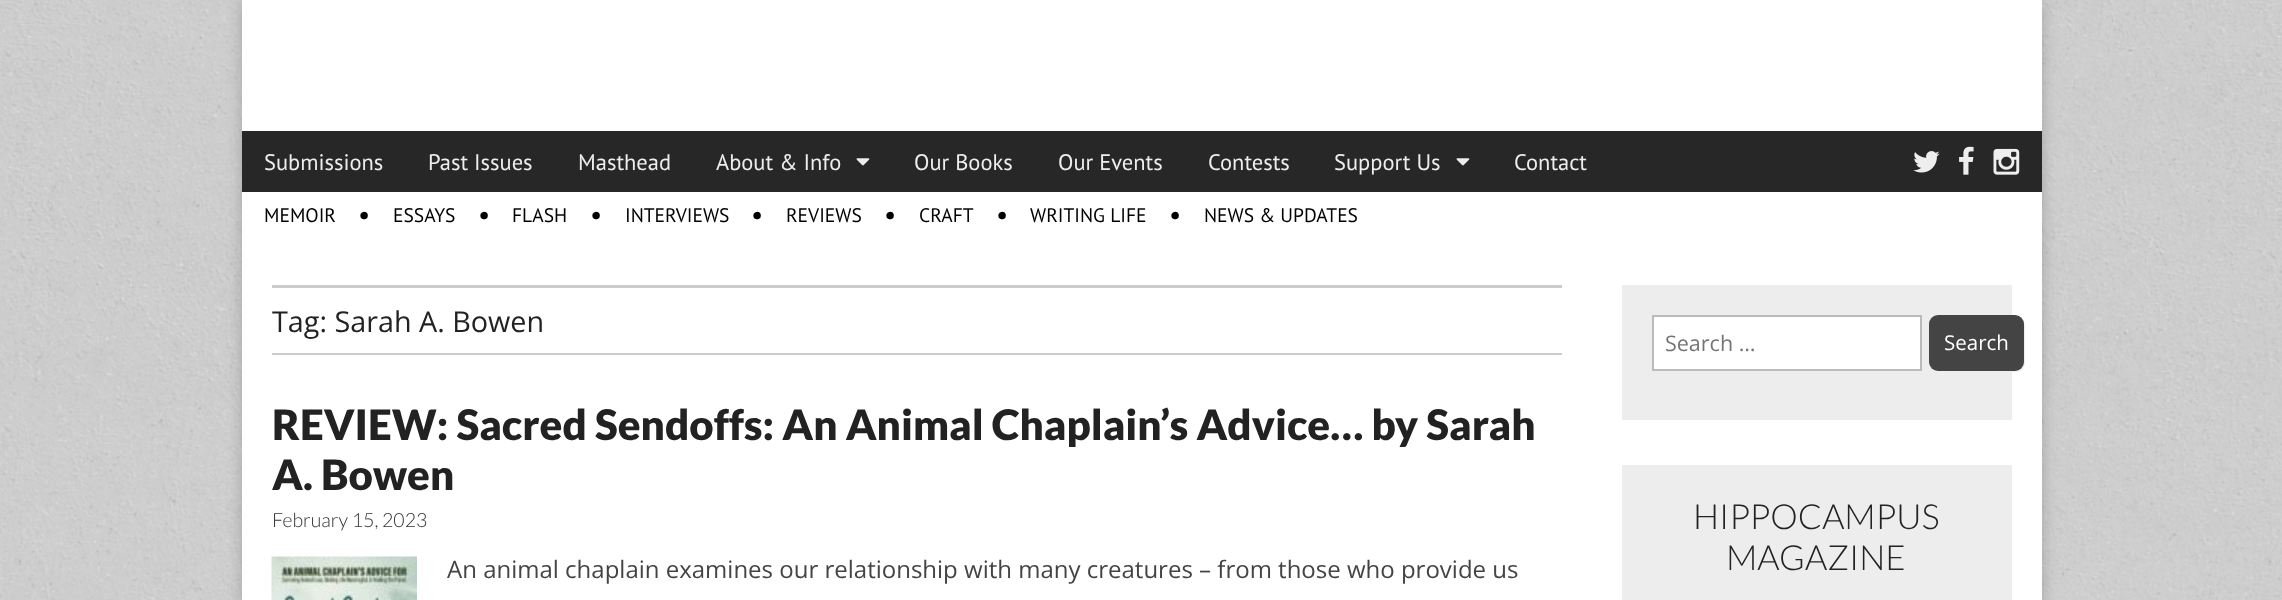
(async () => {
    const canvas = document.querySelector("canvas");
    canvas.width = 2282;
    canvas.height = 600;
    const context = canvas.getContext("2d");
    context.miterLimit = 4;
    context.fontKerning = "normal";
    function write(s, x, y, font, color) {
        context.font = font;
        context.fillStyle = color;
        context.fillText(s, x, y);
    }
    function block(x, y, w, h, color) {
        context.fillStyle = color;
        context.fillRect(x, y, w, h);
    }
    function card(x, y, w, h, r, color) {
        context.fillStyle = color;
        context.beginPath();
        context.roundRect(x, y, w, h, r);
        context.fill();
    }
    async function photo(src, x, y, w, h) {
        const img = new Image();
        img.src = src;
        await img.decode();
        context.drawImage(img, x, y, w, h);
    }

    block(0, 0, 2282, 600, "rgb(255, 255, 255)");
    await photo("media/1.png", 0, 0, 2282, 600);
    context.fillStyle = "rgba(0, 0, 0, 0.2)";
    context.filter = "blur(7.5px)";
    context.beginPath();
    context.rect(242, 0, 1800, 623);
    context.fill();
    context.filter = "none";
    block(242, 0, 1800, 600, "rgb(255, 255, 255)");
    block(242, 131, 1800, 61, "rgb(39, 39, 39)");
    write("Submissions", 264, 170, "22.5px PT Sans", "rgb(238, 238, 238)");
    write("Past Issues", 428, 170, "22.5px PT Sans", "rgb(238, 238, 238)");
    write("Masthead", 578, 170, "22.5px PT Sans", "rgb(238, 238, 238)");
    write("About & Info", 716, 170, "22.5px PT Sans", "rgb(238, 238, 238)");
    await photo("media/2.png", 856, 158, 14, 8);
    write("Our Books", 914, 170, "22.5px PT Sans", "rgb(238, 238, 238)");
    write("Our Events", 1058, 170, "22.5px PT Sans", "rgb(238, 238, 238)");
    write("Contests", 1208, 170, "22.5px PT Sans", "rgb(238, 238, 238)");
    write("Support Us", 1334, 170, "22.5px PT Sans", "rgb(238, 238, 238)");
    await photo("media/2.png", 1456, 158, 14, 8);
    write("Contact", 1514, 170, "22.5px PT Sans", "rgb(238, 238, 238)");
    await photo("media/3.png", 1913, 151, 27, 22);
    await photo("media/4.png", 1959, 146, 15, 29);
    await photo("media/5.png", 1993, 148, 27, 27);
    write("MEMOIR", 264, 222, "19.5px PT Sans", "rgb(0, 0, 0)");
    write("•", 358, 224, "27px PT Sans", "rgb(0, 0, 0)");
    write("ESSAYS", 393, 222, "19.5px PT Sans", "rgb(0, 0, 0)");
    write("•", 478, 224, "27px PT Sans", "rgb(0, 0, 0)");
    write("FLASH", 512, 222, "19.5px PT Sans", "rgb(0, 0, 0)");
    write("•", 590, 224, "27px PT Sans", "rgb(0, 0, 0)");
    write("INTERVIEWS", 625, 222, "19.5px PT Sans", "rgb(0, 0, 0)");
    write("•", 751, 224, "27px PT Sans", "rgb(0, 0, 0)");
    write("REVIEWS", 786, 222, "19.5px PT Sans", "rgb(0, 0, 0)");
    write("•", 884, 224, "27px PT Sans", "rgb(0, 0, 0)");
    write("CRAFT", 919, 222, "19.5px PT Sans", "rgb(0, 0, 0)");
    write("•", 996, 224, "27px PT Sans", "rgb(0, 0, 0)");
    write("WRITING LIFE", 1030, 222, "19.5px PT Sans", "rgb(0, 0, 0)");
    write("•", 1169, 224, "27px PT Sans", "rgb(0, 0, 0)");
    write("NEWS & UPDATES", 1204, 222, "19.5px PT Sans", "rgb(0, 0, 0)");
    block(272, 285, 1290, 3, "rgb(204, 204, 204)");
    block(272, 353, 1290, 2, "rgb(204, 204, 204)");
    write("Tag: Sarah A. Bowen", 272, 332, "28.75px Open Sans", "rgb(34, 34, 34)");
    write("REVIEW: Sacred Sendoffs: An Animal Chaplain’s Advice… by Sarah", 272, 440, "900 42px Lato", "rgb(34, 34, 34)");
    write("A. Bowen", 272, 490, "900 42px Lato", "rgb(34, 34, 34)");
    write("February 15, 2023", 272, 527, "300 19.5px Lato", "rgb(51, 51, 51)");
    await photo("media/6.png", 271, 556, 146, 44);
    write("An animal chaplain examines our relationship with many creatures – from those who provide us", 447, 578, "24px Open Sans", "rgb(68, 68, 68)");
    block(1622, 285, 390, 135, "rgb(237, 237, 237)");
    context.fillStyle = "rgb(255, 255, 255)";
    context.beginPath();
    context.rect(1653, 316, 268, 54);
    context.fill();
    context.strokeStyle = "rgb(187, 187, 187)";
    context.lineWidth = 2;
    context.stroke();
    write("Search …", 1665, 351, "21.5px Open Sans", "rgb(117, 117, 117)");
    context.fillStyle = "rgb(238, 238, 238)";
    context.beginPath();
    context.moveTo(1934, 369);
    context.bezierCurveTo(1935, 371, 1938, 372, 1940, 372);
    context.lineTo(2016, 372);
    context.bezierCurveTo(2021, 372, 2025, 368, 2025, 363);
    context.lineTo(2025, 326);
    context.bezierCurveTo(2025, 324, 2024, 321, 2022, 320);
    context.bezierCurveTo(2023, 321, 2024, 322, 2024, 324);
    context.lineTo(2024, 362);
    context.bezierCurveTo(2024, 366, 2019, 370, 2014, 370);
    context.lineTo(1938, 370);
    context.bezierCurveTo(1936, 370, 1935, 370, 1934, 369);
    context.closePath();
    context.fill();
    card(1929, 315, 95, 56, 9, "rgb(68, 68, 68)");
    write("Search", 1944, 350, "20.5px Open Sans", "rgb(255, 255, 255)");
    block(1622, 465, 390, 135, "rgb(237, 237, 237)");
    write("HIPPOCAMPUS", 1693, 529, "300 34.5px Lato", "rgb(34, 34, 34)");
    write("MAGAZINE", 1726, 570, "300 34.5px Lato", "rgb(34, 34, 34)");
})();
